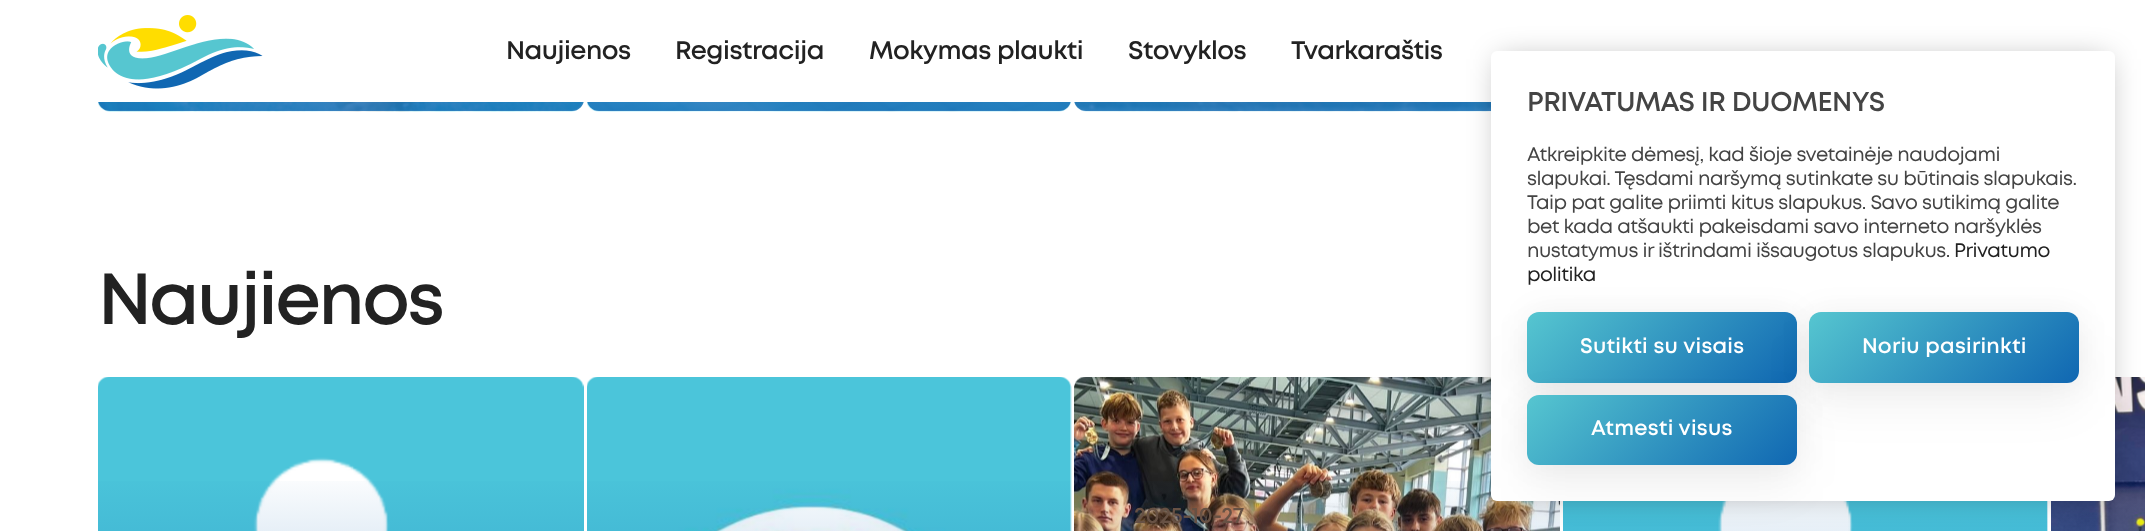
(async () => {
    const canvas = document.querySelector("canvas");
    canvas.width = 2145;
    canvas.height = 531;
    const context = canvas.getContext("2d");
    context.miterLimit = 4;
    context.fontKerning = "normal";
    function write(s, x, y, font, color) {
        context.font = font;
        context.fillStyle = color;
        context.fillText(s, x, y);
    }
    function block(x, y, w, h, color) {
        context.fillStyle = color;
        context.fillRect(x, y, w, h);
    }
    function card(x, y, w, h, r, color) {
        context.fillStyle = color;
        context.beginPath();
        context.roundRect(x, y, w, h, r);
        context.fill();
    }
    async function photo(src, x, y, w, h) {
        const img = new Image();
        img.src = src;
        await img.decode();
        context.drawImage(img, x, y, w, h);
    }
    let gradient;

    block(0, 0, 2145, 531, "rgb(255, 255, 255)");
    await photo("media/2.png", 98, 102, 486, 10);
    gradient = context.createLinearGradient(341, 111, 341, -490);
    gradient.addColorStop(0, "rgba(0, 71, 111, 0.8)");
    gradient.addColorStop(0, "rgba(16, 103, 178, 0.8)");
    gradient.addColorStop(0.7, "rgba(16, 103, 178, 0)");
    context.fillStyle = gradient;
    context.beginPath();
    context.roundRect(98, -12, 486, 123, 12);
    context.fill();
    await photo("media/3.png", 587, 102, 485, 10);
    gradient = context.createLinearGradient(829, 111, 829, -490);
    gradient.addColorStop(0, "rgba(0, 71, 111, 0.8)");
    gradient.addColorStop(0, "rgba(16, 103, 178, 0.8)");
    gradient.addColorStop(0.7, "rgba(16, 103, 178, 0)");
    context.fillStyle = gradient;
    context.beginPath();
    context.roundRect(587, -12, 484, 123, 12);
    context.fill();
    await photo("media/4.png", 1074, 102, 417, 10);
    gradient = context.createLinearGradient(1317, 111, 1317, -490);
    gradient.addColorStop(0, "rgba(0, 71, 111, 0.8)");
    gradient.addColorStop(0, "rgba(16, 103, 178, 0.8)");
    gradient.addColorStop(0.7, "rgba(16, 103, 178, 0)");
    context.fillStyle = gradient;
    context.beginPath();
    context.roundRect(1074, -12, 486, 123, 12);
    context.fill();
    block(98, 0, 1462, 102, "rgb(255, 255, 255)");
    await photo("media/1.png", 98, 15, 165, 74);
    context.letterSpacing = "-0.5px";
    write("Naujienos", 506, 59, "600 25.5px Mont", "rgb(34, 34, 34)");
    write("Registracija", 675, 59, "600 25.5px Mont", "rgb(34, 34, 34)");
    write("Mokymas plaukti", 869, 59, "600 25.5px Mont", "rgb(34, 34, 34)");
    write("Stovyklos", 1128, 59, "600 25.5px Mont", "rgb(34, 34, 34)");
    write("Tvarkaraštis", 1291, 59, "600 25.5px Mont", "rgb(34, 34, 34)");
    context.letterSpacing = "-2.25px";
    write("Naujienos", 98, 324, "600 72px Mont", "rgb(34, 34, 34)");
    await photo("media/5.png", 98, 377, 486, 154);
    gradient = context.createLinearGradient(341, 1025, 341, 377);
    gradient.addColorStop(0, "rgba(0, 71, 111, 0.9)");
    gradient.addColorStop(0, "rgba(16, 103, 178, 0.9)");
    gradient.addColorStop(0.86, "rgba(16, 103, 178, 0)");
    context.fillStyle = gradient;
    context.fillRect(98, 481, 486, 50);
    await photo("media/6.png", 587, 377, 485, 154);
    gradient = context.createLinearGradient(829, 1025, 829, 377);
    gradient.addColorStop(0, "rgba(0, 71, 111, 0.9)");
    gradient.addColorStop(0, "rgba(16, 103, 178, 0.9)");
    gradient.addColorStop(0.86, "rgba(16, 103, 178, 0)");
    context.fillStyle = gradient;
    context.fillRect(587, 481, 484, 50);
    await photo("media/7.png", 1074, 377, 486, 154);
    gradient = context.createLinearGradient(1317, 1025, 1317, 377);
    gradient.addColorStop(0, "rgba(0, 71, 111, 0.9)");
    gradient.addColorStop(0, "rgba(16, 103, 178, 0.9)");
    gradient.addColorStop(0.86, "rgba(16, 103, 178, 0)");
    context.fillStyle = gradient;
    context.fillRect(1074, 481, 486, 50);
    context.letterSpacing = "-0.45px";
    write("2025-10-27", 1134, 523, "600 22.5px Mont", "rgb(103, 81, 68)");
    await photo("media/8.png", 1563, 501, 485, 30);
    gradient = context.createLinearGradient(1805, 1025, 1805, 377);
    gradient.addColorStop(0, "rgba(0, 71, 111, 0.9)");
    gradient.addColorStop(0, "rgba(16, 103, 178, 0.9)");
    gradient.addColorStop(0.86, "rgba(16, 103, 178, 0)");
    context.fillStyle = gradient;
    context.fillRect(1563, 501, 485, 30);
    await photo("media/9.png", 2051, 377, 94, 154);
    gradient = context.createLinearGradient(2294, 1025, 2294, 377);
    gradient.addColorStop(0, "rgba(0, 71, 111, 0.9)");
    gradient.addColorStop(0, "rgba(16, 103, 178, 0.9)");
    gradient.addColorStop(0.86, "rgba(16, 103, 178, 0)");
    context.fillStyle = gradient;
    context.fillRect(2051, 482, 94, 49);
    context.fillStyle = "rgba(0, 0, 0, 0.3)";
    context.filter = "blur(15px)";
    context.beginPath();
    context.rect(1499, 59, 609, 435);
    context.fill();
    context.filter = "none";
    card(1491, 51, 624, 450, 6, "rgb(255, 255, 255)");
    write("PRIVATUMAS IR DUOMENYS", 1527, 111, "600 27px Mont", "rgb(68, 68, 68)");
    context.letterSpacing = "-0.5px";
    write("Atkreipkite dėmesį, kad šioje svetainėje naudojami", 1527, 161, "19.5px Mont", "rgb(68, 68, 68)");
    write("slapukai. Tęsdami naršymą sutinkate su būtinais slapukais.", 1527, 185, "19.5px Mont", "rgb(68, 68, 68)");
    write("Taip pat galite priimti kitus slapukus. Savo sutikimą galite", 1527, 209, "19.5px Mont", "rgb(68, 68, 68)");
    write("bet kada atšaukti pakeisdami savo interneto naršyklės", 1527, 233, "19.5px Mont", "rgb(68, 68, 68)");
    write("nustatymus ir ištrindami išsaugotus slapukus.", 1527, 257, "19.5px Mont", "rgb(68, 68, 68)");
    write("Privatumo", 1954, 257, "19.5px Mont", "rgb(34, 34, 34)");
    write("politika", 1527, 281, "19.5px Mont", "rgb(34, 34, 34)");
    context.fillStyle = "rgba(0, 0, 0, 0.05)";
    context.filter = "blur(15px)";
    context.beginPath();
    context.roundRect(1527, 312, 270, 71, 12);
    context.fill();
    context.filter = "none";
    context.filter = "blur(22.5px)";
    context.beginPath();
    context.roundRect(1527, 335, 270, 70, 12);
    context.fill();
    context.filter = "none";
    gradient = context.createLinearGradient(1577, 262, 1747, 432);
    gradient.addColorStop(0, "rgb(86, 198, 208)");
    gradient.addColorStop(1, "rgb(16, 103, 178)");
    context.fillStyle = gradient;
    context.beginPath();
    context.roundRect(1527, 312, 270, 71, 12);
    context.fill();
    context.letterSpacing = "0.25px";
    write("Sutikti su visais", 1580, 353, "600 21px Mont", "rgb(255, 255, 255)");
    context.fillStyle = "rgba(0, 0, 0, 0.05)";
    context.filter = "blur(15px)";
    context.beginPath();
    context.roundRect(1809, 312, 270, 71, 12);
    context.fill();
    context.filter = "none";
    context.filter = "blur(22.5px)";
    context.beginPath();
    context.roundRect(1809, 335, 270, 70, 12);
    context.fill();
    context.filter = "none";
    gradient = context.createLinearGradient(1859, 262, 2029, 432);
    gradient.addColorStop(0, "rgb(86, 198, 208)");
    gradient.addColorStop(1, "rgb(16, 103, 178)");
    context.fillStyle = gradient;
    context.beginPath();
    context.roundRect(1809, 312, 270, 71, 12);
    context.fill();
    write("Noriu pasirinkti", 1862, 353, "600 21px Mont", "rgb(255, 255, 255)");
    context.fillStyle = "rgba(0, 0, 0, 0.05)";
    context.filter = "blur(15px)";
    context.beginPath();
    context.roundRect(1527, 395, 270, 70, 12);
    context.fill();
    context.filter = "none";
    context.filter = "blur(22.5px)";
    context.beginPath();
    context.roundRect(1527, 417, 270, 71, 12);
    context.fill();
    context.filter = "none";
    gradient = context.createLinearGradient(1577, 345, 1747, 515);
    gradient.addColorStop(0, "rgb(86, 198, 208)");
    gradient.addColorStop(1, "rgb(16, 103, 178)");
    context.fillStyle = gradient;
    context.beginPath();
    context.roundRect(1527, 395, 270, 70, 12);
    context.fill();
    write("Atmesti visus", 1591, 435, "600 21px Mont", "rgb(255, 255, 255)");
})();
